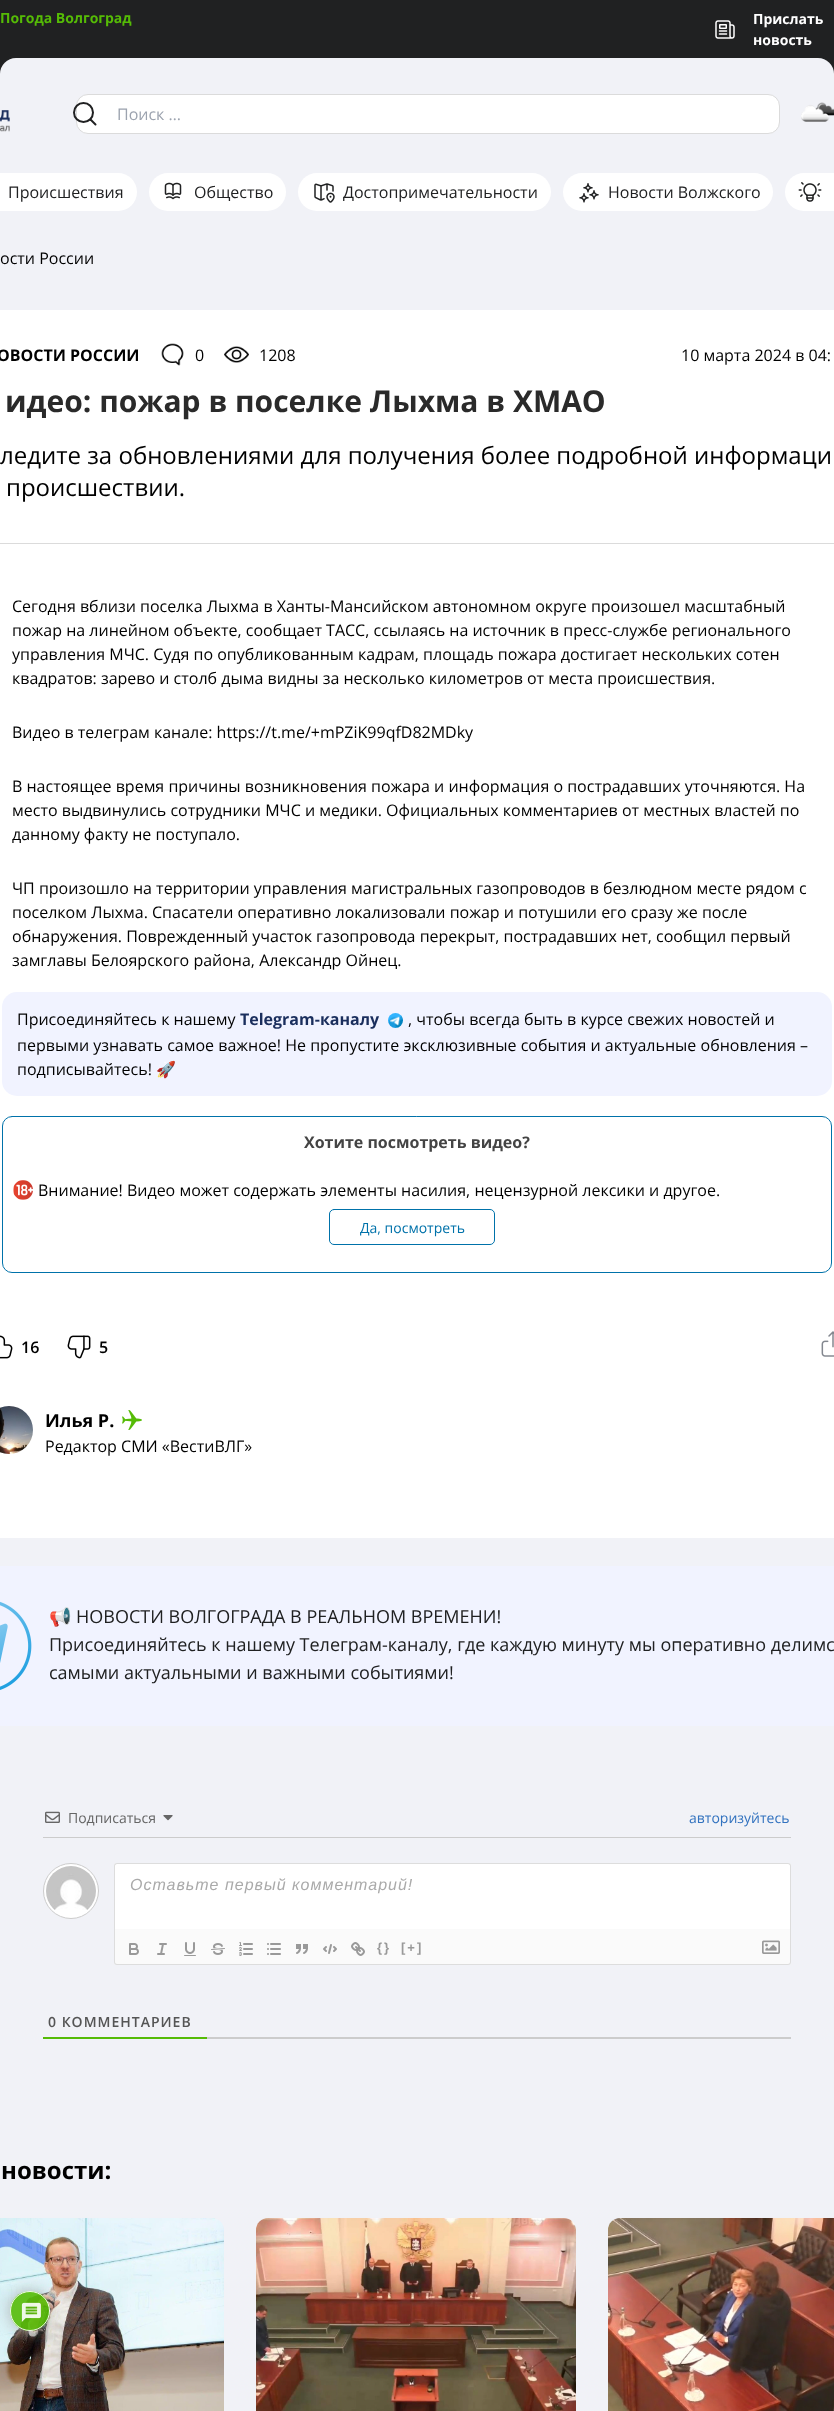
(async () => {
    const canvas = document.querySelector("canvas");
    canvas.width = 834;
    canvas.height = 2411;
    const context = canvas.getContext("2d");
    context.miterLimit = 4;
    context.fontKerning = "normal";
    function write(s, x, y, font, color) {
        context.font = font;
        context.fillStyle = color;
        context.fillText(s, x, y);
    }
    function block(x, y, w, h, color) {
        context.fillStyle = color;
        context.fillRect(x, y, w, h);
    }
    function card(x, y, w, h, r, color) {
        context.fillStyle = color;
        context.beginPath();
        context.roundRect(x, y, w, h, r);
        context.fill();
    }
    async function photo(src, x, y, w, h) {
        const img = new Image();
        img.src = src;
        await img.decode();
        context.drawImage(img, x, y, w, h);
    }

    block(0, 0, 834, 2411, "rgb(32, 33, 34)");
    write("Погода Волгоград", 0, 23, "bold 14px Open Sans", "rgb(85, 187, 6)");
    await photo("media/1.png", 715, 20, 20, 19);
    write("Прислать", 753, 24, "bold 14px Open Sans", "rgb(255, 255, 255)");
    write("новость", 753, 45, "bold 14px Open Sans", "rgb(255, 255, 255)");
    card(0, 58, 834, 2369, 16, "rgb(241, 242, 247)");
    await photo("media/2.png", 0, 110, 10, 22);
    context.fillStyle = "rgb(255, 255, 255)";
    context.beginPath();
    context.roundRect(76.5, 94.5, 703, 39, 11.5);
    context.fill();
    context.strokeStyle = "rgb(219, 219, 219)";
    context.stroke();
    context.beginPath();
    context.arc(83.5, 112.5, 9.5, 0, Math.PI * 2);
    context.strokeStyle = "rgb(32, 33, 34)";
    context.lineWidth = 2;
    context.stroke();
    context.beginPath();
    context.moveTo(95.5, 124.5);
    context.lineTo(90.5, 119.5);
    context.lineCap = "round";
    context.lineJoin = "round";
    context.stroke();
    write("Поиск …", 117, 120, "16px Open Sans", "rgb(156, 163, 175)");
    await photo("media/3.png", 801, 102, 33, 20);
    card(-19, 173, 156, 38, 19, "rgb(255, 255, 255)");
    write("Происшествия", 8, 198, "16px Open Sans", "rgb(32, 33, 34)");
    card(149, 173, 137, 38, 19, "rgb(255, 255, 255)");
    await photo("media/4.png", 164, 182, 18, 18);
    write("Общество", 194, 198, "16px Open Sans", "rgb(32, 33, 34)");
    card(298, 173, 253, 38, 19, "rgb(255, 255, 255)");
    await photo("media/5.png", 314, 183, 21, 20);
    write("Достопримечательности", 343, 198, "16px Open Sans", "rgb(32, 33, 34)");
    card(563, 173, 210, 38, 19, "rgb(255, 255, 255)");
    await photo("media/6.png", 579, 183, 20, 20);
    write("Новости Волжского", 608, 198, "16px Open Sans", "rgb(32, 33, 34)");
    card(785, 173, 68, 38, 19, "rgb(255, 255, 255)");
    await photo("media/7.png", 798, 182, 24, 20);
    write("ости России", 0, 264, "16px Open Sans", "rgb(0, 0, 0)");
    block(0, 310, 834, 1228, "rgb(255, 255, 255)");
    write("ОВОСТИ РОССИИ", -3, 361, "bold 16px Open Sans", "rgb(0, 0, 0)");
    await photo("media/8.png", 161, 343, 23, 23);
    write("0", 195, 361, "16px Open Sans", "rgb(0, 0, 0)");
    await photo("media/9.png", 224, 346, 25, 17);
    write("1208", 259, 361, "16px Open Sans", "rgb(0, 0, 0)");
    write("10 марта 2024 в 04:", 681, 361, "16px Open Sans", "rgb(0, 0, 0)");
    block(0, 543, 834, 1, "rgb(219, 219, 219)");
    write("идео: пожар в поселке Лыхма в ХМАО", 5, 412, "bold 30px Open Sans", "rgb(42, 42, 42)");
    write("ледите за обновлениями для получения более подробной информаци", 0, 464, "24px Open Sans", "rgb(0, 0, 0)");
    write("происшествии.", 6, 496, "24px Open Sans", "rgb(0, 0, 0)");
    write("Сегодня вблизи поселка Лыхма в Ханты-Мансийском автономном округе произошел масштабный", 12, 612, "16px Open Sans", "rgb(0, 0, 0)");
    write("пожар на линейном объекте, сообщает ТАСС, ссылаясь на источник в пресс-службе регионального", 12, 636, "16px Open Sans", "rgb(0, 0, 0)");
    write("управления МЧС. Судя по опубликованным кадрам, площадь пожара достигает нескольких сотен", 12, 660, "16px Open Sans", "rgb(0, 0, 0)");
    write("квадратов: зарево и столб дыма видны за несколько километров от места происшествия.", 12, 684, "16px Open Sans", "rgb(0, 0, 0)");
    write("Видео в телеграм канале: https://t.me/+mPZiK99qfD82MDky", 12, 738, "16px Open Sans", "rgb(0, 0, 0)");
    write("В настоящее время причины возникновения пожара и информация о пострадавших уточняются. На", 12, 792, "16px Open Sans", "rgb(0, 0, 0)");
    write("место выдвинулись сотрудники МЧС и медики. Официальных комментариев от местных властей по", 12, 816, "16px Open Sans", "rgb(0, 0, 0)");
    write("данному факту не поступало.", 12, 840, "16px Open Sans", "rgb(0, 0, 0)");
    write("ЧП произошло на территории управления магистральных газопроводов в безлюдном месте рядом с", 12, 894, "16px Open Sans", "rgb(0, 0, 0)");
    write("поселком Лыхма. Спасатели оперативно локализовали пожар и потушили его сразу же после", 12, 918, "16px Open Sans", "rgb(0, 0, 0)");
    write("обнаружения. Поврежденный участок газопровода перекрыт, пострадавших нет, сообщил первый", 12, 942, "16px Open Sans", "rgb(0, 0, 0)");
    write("замглавы Белоярского района, Александр Ойнец.", 12, 966, "16px Open Sans", "rgb(0, 0, 0)");
    card(2, 992, 830, 104, 15, "rgb(241, 243, 255)");
    write("Присоединяйтесь к нашему", 17, 1025, "16px Open Sans", "rgb(0, 0, 0)");
    write("Telegram-каналу", 240, 1025, "bold 16px Open Sans", "rgb(26, 46, 93)");
    await photo("media/10.png", 388, 1013, 15, 15);
    write(", чтобы всегда быть в курсе свежих новостей и", 408, 1025, "16px Open Sans", "rgb(0, 0, 0)");
    write("первыми узнавать самое важное! Не пропустите эксклюзивные события и актуальные обновления –", 17, 1051, "16px Open Sans", "rgb(0, 0, 0)");
    write("подписывайтесь!", 17, 1075, "16px Open Sans", "rgb(0, 0, 0)");
    write("🚀", 156, 1075, "16px Noto Color Emoji", "rgb(0, 0, 0)");
    context.beginPath();
    context.roundRect(2.5, 1116.5, 829, 156, 9.5);
    context.strokeStyle = "rgb(0, 114, 170)";
    context.lineWidth = 1;
    context.lineJoin = "miter";
    context.stroke();
    write("Хотите посмотреть видео?", 304, 1148, "bold 16px Open Sans", "rgb(68, 68, 68)");
    await photo("media/11.png", 13, 1180, 20, 20);
    write("Внимание! Видео может содержать элементы насилия, нецензурной лексики и другое.", 38, 1196, "16px Open Sans", "rgb(0, 0, 0)");
    context.beginPath();
    context.roundRect(329.5, 1209.5, 165, 35, 4.5);
    context.stroke();
    write("Да, посмотреть", 360, 1233, "14px Open Sans", "rgb(0, 114, 170)");
    await photo("media/12.png", 0, 1335, 13, 24);
    write("16", 21, 1353, "600 16px Open Sans", "rgb(0, 0, 0)");
    await photo("media/13.png", 67, 1335, 24, 24);
    write("5", 99, 1353, "600 16px Open Sans", "rgb(0, 0, 0)");
    await photo("media/14.png", 821, 1331, 13, 26);
    await photo("media/15.png", 0, 1406, 33, 48);
    write("Илья Р.", 45, 1427, "bold 18px Open Sans", "rgb(0, 0, 0)");
    await photo("media/16.png", 122, 1410, 20, 20);
    write("Редактор СМИ «ВестиВЛГ»", 45, 1452, "16px Open Sans", "rgb(0, 0, 0)");
    block(0, 1566, 834, 160, "rgb(241, 243, 255)");
    await photo("media/17.png", 0, 1601, 32, 89);
    write("📢", 49, 1623, "18px Noto Color Emoji", "rgb(32, 33, 34)");
    write("НОВОСТИ ВОЛГОГРАДА В РЕАЛЬНОМ ВРЕМЕНИ!", 76, 1623, "18px Open Sans", "rgb(32, 33, 34)");
    write("Присоединяйтесь к нашему Телеграм-каналу, где каждую минуту мы оперативно делимс", 49, 1651, "18px Open Sans", "rgb(32, 33, 34)");
    write("самыми актуальными и важными событиями!", 49, 1679, "18px Open Sans", "rgb(32, 33, 34)");
    block(43, 1837, 748, 1, "rgb(204, 204, 204)");
    await photo("media/18.png", 45, 1811, 15, 12);
    write("Подписаться", 68, 1823, "14px Open Sans", "rgb(102, 102, 102)");
    await photo("media/19.png", 163, 1815, 10, 6);
    write("авторизуйтесь", 689, 1823, "14px Open Sans", "rgb(50, 114, 191)");
    context.fillStyle = "rgb(255, 255, 255)";
    context.beginPath();
    context.arc(71, 1891, 27.5, 0, Math.PI * 2);
    context.fill();
    context.strokeStyle = "rgb(204, 204, 204)";
    context.stroke();
    await photo("media/20.png", 46, 1866, 50, 44);
    context.beginPath();
    context.roundRect(114, 1863, 677, 66, [3, 3, 0, 0]);
    context.fill();
    context.fillStyle = "rgb(221, 221, 221)";
    context.beginPath();
    context.moveTo(117, 1863);
    context.lineTo(788, 1863);
    context.bezierCurveTo(790, 1863, 791, 1864, 791, 1866);
    context.lineTo(791, 1929);
    context.lineTo(114, 1929);
    context.lineTo(114, 1866);
    context.bezierCurveTo(114, 1864, 115, 1863, 117, 1863);
    context.closePath();
    context.moveTo(117, 1864);
    context.lineTo(788, 1864);
    context.bezierCurveTo(789, 1864, 790, 1865, 790, 1866);
    context.lineTo(790, 1929);
    context.lineTo(115, 1929);
    context.lineTo(115, 1866);
    context.bezierCurveTo(115, 1865, 116, 1864, 117, 1864);
    context.closePath();
    context.fill("evenodd");
    context.letterSpacing = "1px";
    write("Оставьте первый комментарий!", 130, 1890, "italic 16px Liberation Sans", "rgb(170, 170, 170)");
    context.fillStyle = "rgb(250, 250, 250)";
    context.beginPath();
    context.roundRect(114, 1929, 677, 36, [0, 0, 3, 3]);
    context.fill();
    context.fillStyle = "rgb(221, 221, 221)";
    context.beginPath();
    context.moveTo(114, 1929);
    context.lineTo(791, 1929);
    context.lineTo(791, 1962);
    context.bezierCurveTo(791, 1964, 790, 1965, 788, 1965);
    context.lineTo(117, 1965);
    context.bezierCurveTo(115, 1965, 114, 1964, 114, 1962);
    context.closePath();
    context.moveTo(115, 1929);
    context.lineTo(790, 1929);
    context.lineTo(790, 1962);
    context.bezierCurveTo(790, 1963, 789, 1964, 788, 1964);
    context.lineTo(117, 1964);
    context.bezierCurveTo(116, 1964, 115, 1963, 115, 1962);
    context.closePath();
    context.fill("evenodd");
    await photo("media/21.png", 129, 1943, 10, 12);
    await photo("media/22.png", 157, 1943, 10, 12);
    await photo("media/23.png", 184, 1942, 12, 14);
    await photo("media/24.png", 211, 1943, 14, 12);
    await photo("media/25.png", 239, 1942, 14, 14);
    await photo("media/26.png", 267, 1943, 14, 12);
    await photo("media/27.png", 296, 1944, 12, 10);
    await photo("media/28.png", 323, 1944, 14, 10);
    await photo("media/29.png", 351, 1942, 14, 14);
    context.letterSpacing = "2px";
    write("{}", 377, 1952, "bold 13px Liberation Sans", "rgb(153, 153, 153)");
    write("[+]", 401, 1952, "bold 13px Liberation Sans", "rgb(153, 153, 153)");
    await photo("media/30.png", 762, 1940, 18, 14);
    block(207, 2037, 584, 2, "rgb(204, 204, 204)");
    block(43, 2037, 164, 2, "rgb(85, 187, 6)");
    context.letterSpacing = "1px";
    write("0 КОММЕНТАРИЕВ", 48, 2027, "600 14px Open Sans", "rgb(85, 85, 85)");
    context.letterSpacing = "0px";
    write("новости:", 1, 2179, "bold 24px Open Sans", "rgb(0, 0, 0)");
    await photo("media/31.png", 0, 2218, 224, 193);
    await photo("media/32.png", 256, 2218, 320, 193);
    await photo("media/33.png", 608, 2218, 226, 193);
    context.save();
    context.beginPath();
    context.moveTo(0, 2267);
    context.lineTo(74, 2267);
    context.lineTo(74, 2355);
    context.lineTo(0, 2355);
    context.closePath();
    context.moveTo(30, 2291);
    context.bezierCurveTo(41, 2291, 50, 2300, 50, 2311);
    context.bezierCurveTo(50, 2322, 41, 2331, 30, 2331);
    context.bezierCurveTo(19, 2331, 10, 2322, 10, 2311);
    context.bezierCurveTo(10, 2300, 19, 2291, 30, 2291);
    context.closePath();
    context.clip("evenodd");
    context.fillStyle = "rgba(170, 170, 170, 0.9)";
    context.filter = "blur(7.5px)";
    context.beginPath();
    context.roundRect(10, 2291, 40, 40, 20);
    context.fill();
    context.filter = "none";
    context.restore();
    context.fillStyle = "rgba(85, 187, 6, 0.9)";
    context.beginPath();
    context.arc(30, 2311, 20, 0, Math.PI * 2);
    context.fill();
    context.beginPath();
    context.arc(30, 2311, 19.5, 0, Math.PI * 2);
    context.strokeStyle = "rgba(255, 255, 255, 0.9)";
    context.stroke();
    await photo("media/34.png", 21, 2302, 20, 20);
})();
